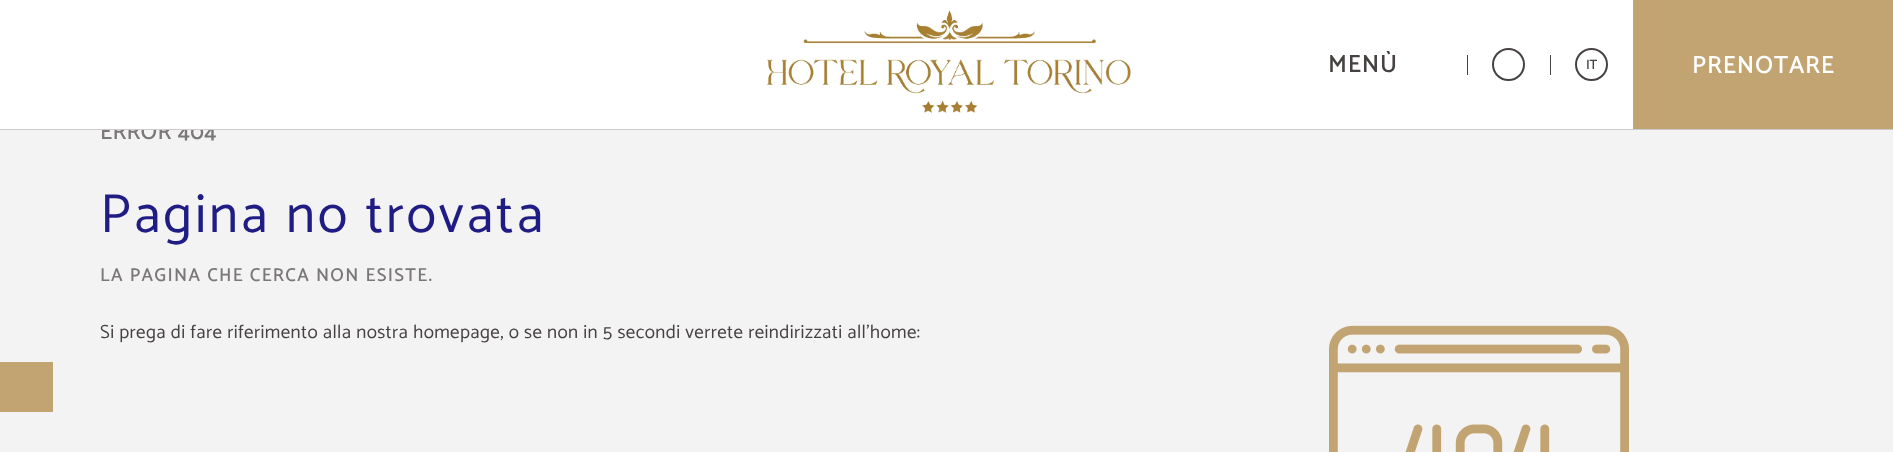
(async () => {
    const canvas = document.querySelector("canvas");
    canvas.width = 1893;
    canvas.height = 452;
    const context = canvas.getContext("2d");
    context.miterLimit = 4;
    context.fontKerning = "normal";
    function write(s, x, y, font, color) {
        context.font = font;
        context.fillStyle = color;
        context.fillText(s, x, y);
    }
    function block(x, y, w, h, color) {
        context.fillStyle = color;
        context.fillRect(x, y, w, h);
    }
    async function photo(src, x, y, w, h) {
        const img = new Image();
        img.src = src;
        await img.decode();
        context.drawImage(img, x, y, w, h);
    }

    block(0, 0, 1893, 452, "rgb(243, 243, 243)");
    context.letterSpacing = "1px";
    write("ERROR 404", 100, 139, "bold 22px Catamaran", "rgb(123, 119, 119)");
    block(0, 0, 1633, 129, "rgb(255, 255, 255)");
    block(0, 129, 1893, 1, "rgb(204, 203, 204)");
    await photo("media/1.png", 766, 10, 365, 103);
    context.save();
    context.beginPath();
    context.rect(1328, 51, 70, 27);
    context.clip();
    context.letterSpacing = "1.5px";
    write("MENÙ", 1328, 72, "bold 24px Catamaran", "rgb(71, 66, 66)");
    context.restore();
    block(1467, 55, 1, 20, "rgb(71, 66, 66)");
    context.beginPath();
    context.arc(1508.5, 64.5, 15.5, 0, Math.PI * 2);
    context.strokeStyle = "rgb(71, 66, 66)";
    context.lineWidth = 2;
    context.stroke();
    block(1550, 55, 1, 20, "rgb(71, 66, 66)");
    context.beginPath();
    context.arc(1591.5, 64.5, 15.5, 0, Math.PI * 2);
    context.stroke();
    context.letterSpacing = "0px";
    write("IT", 1586, 69, "bold 13px Catamaran", "rgb(71, 66, 66)");
    block(1633, 0, 260, 129, "rgb(194, 164, 114)");
    context.letterSpacing = "1.5px";
    write("PRENOTARE", 1692, 73, "bold 24px Catamaran", "rgb(255, 255, 255)");
    context.letterSpacing = "2.75px";
    write("Pagina no trovata", 100, 232, "100 55px Catamaran", "rgb(31, 28, 131)");
    context.letterSpacing = "1.8px";
    write("LA PAGINA CHE CERCA NON ESISTE.", 100, 281, "bold 18px Catamaran", "rgb(123, 119, 119)");
    context.letterSpacing = "0.38px";
    write("Si prega di fare riferimento alla nostra homepage, o se non in 5 secondi verrete reindirizzati all'home:", 100, 338, "100 19px Catamaran", "rgb(71, 66, 66)");
    await photo("media/2.png", 1329, 325, 300, 127);
    block(0, 362, 53, 50, "rgb(194, 164, 114)");
})();
